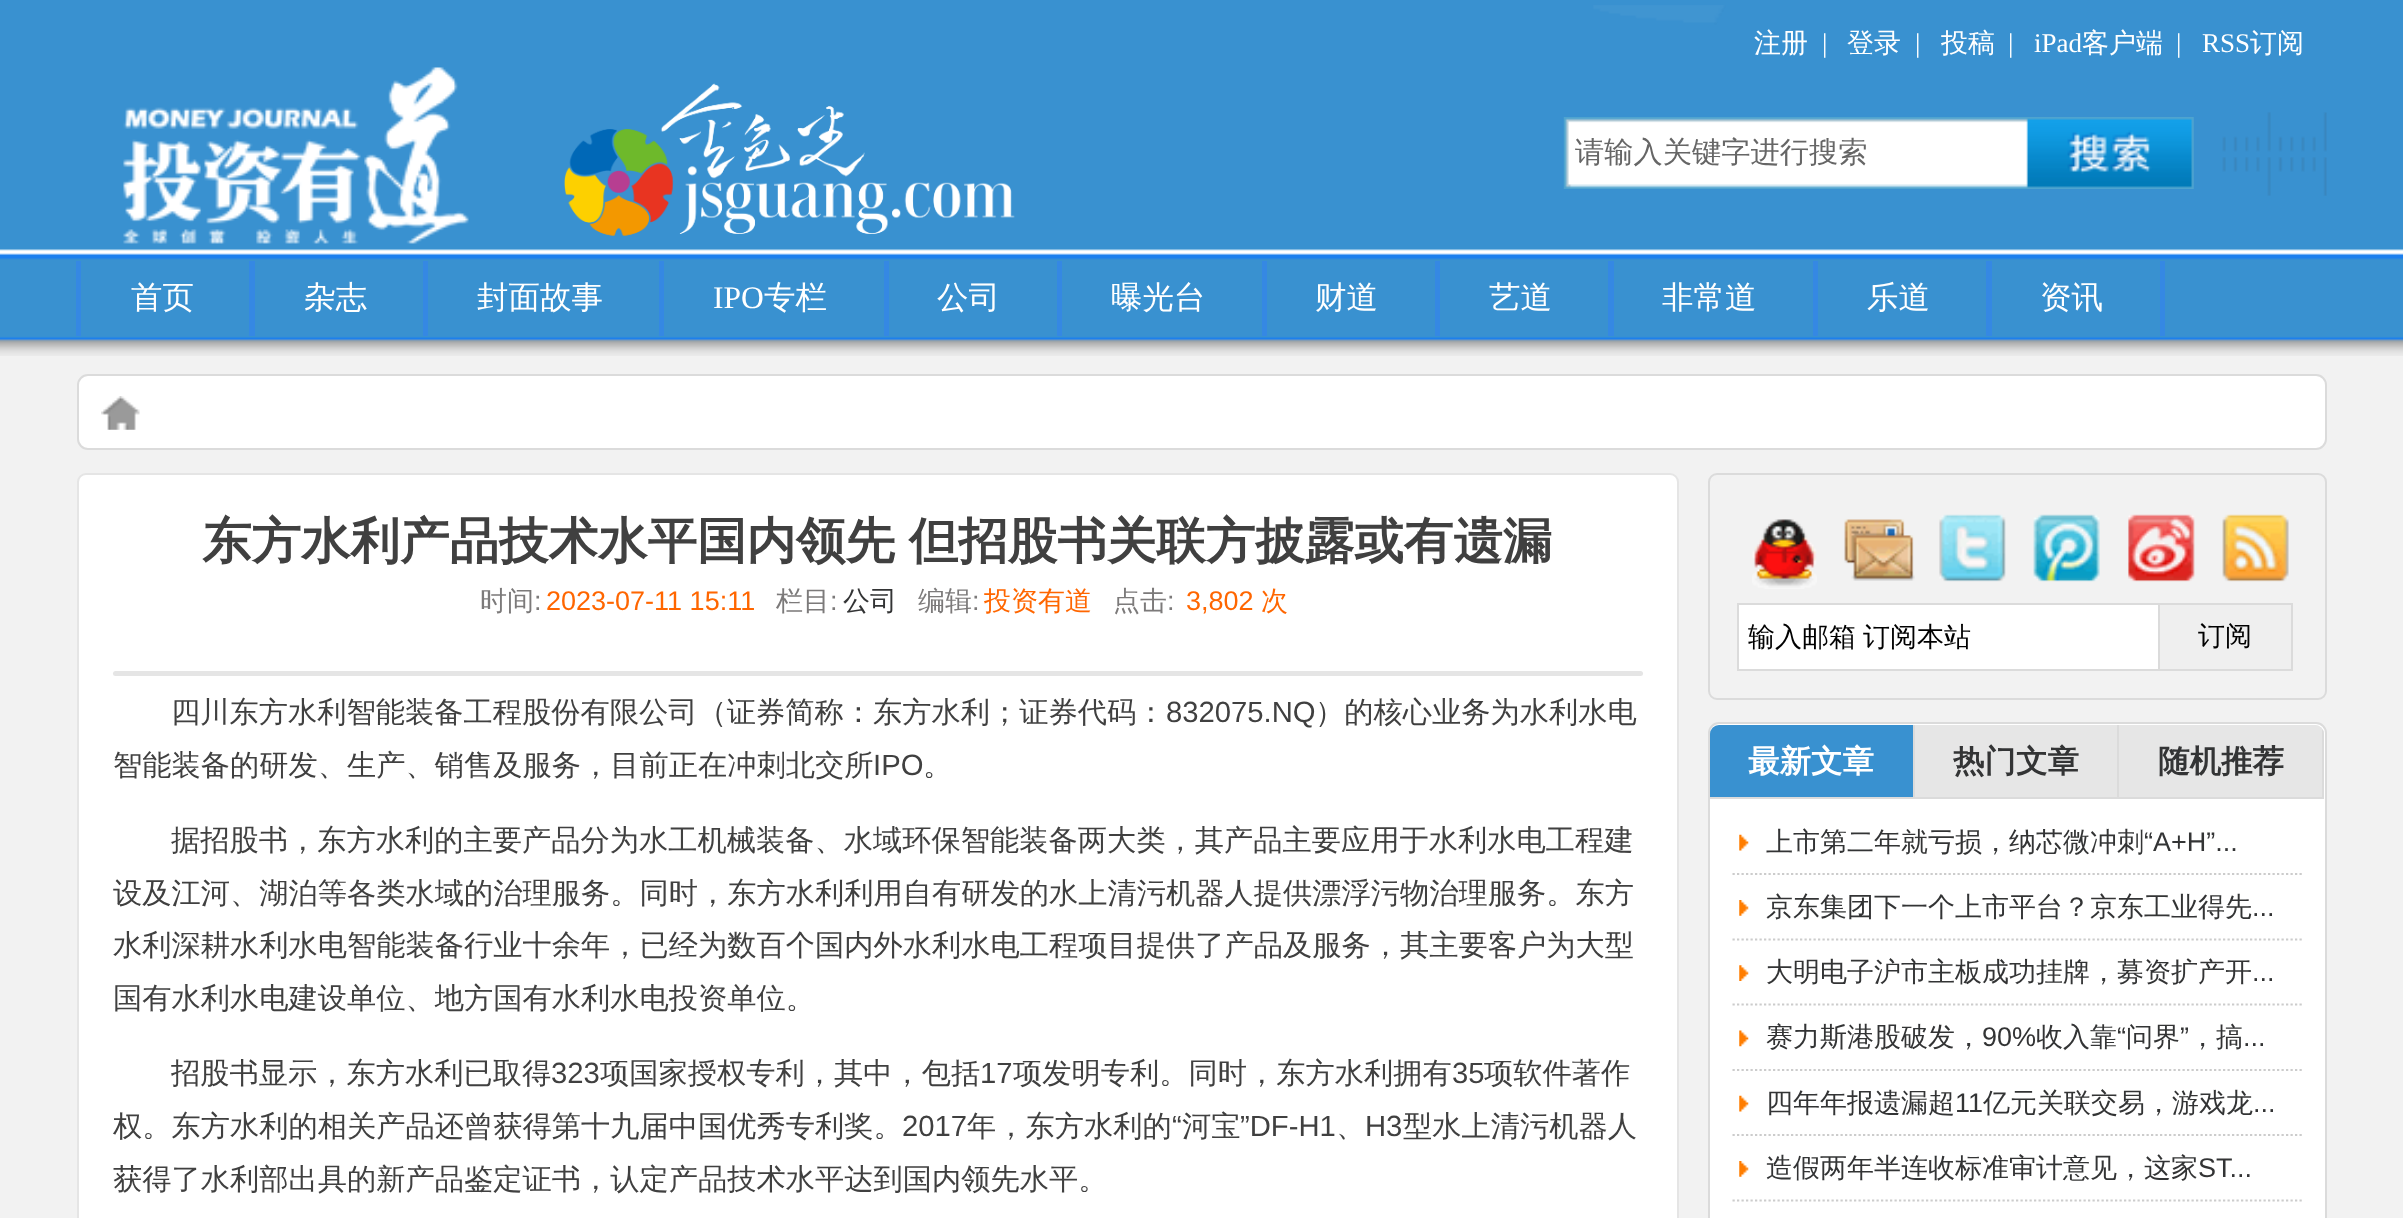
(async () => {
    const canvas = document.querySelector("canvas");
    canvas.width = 2403;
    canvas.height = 1218;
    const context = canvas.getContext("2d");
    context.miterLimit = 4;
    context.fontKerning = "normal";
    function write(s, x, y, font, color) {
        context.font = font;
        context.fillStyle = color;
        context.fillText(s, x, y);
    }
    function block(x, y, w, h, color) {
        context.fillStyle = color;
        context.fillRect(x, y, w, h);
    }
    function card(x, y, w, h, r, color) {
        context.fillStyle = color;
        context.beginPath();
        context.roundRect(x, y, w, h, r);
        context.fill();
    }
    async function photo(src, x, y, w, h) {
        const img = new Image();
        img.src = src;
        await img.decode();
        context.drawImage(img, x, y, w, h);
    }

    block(0, 0, 2403, 1218, "rgb(242, 242, 242)");
    await photo("media/1.png", 0, 0, 2403, 356);
    await photo("media/2.png", 1593, 5, 734, 191);
    await photo("media/3.png", 123, 67, 346, 177);
    await photo("media/4.png", 564, 83, 451, 153);
    write("注册", 1754, 52, "500 27px WenQuanYi Zen Hei", "rgb(255, 255, 255)");
    write("|", 1822, 52, "27px Liberation Serif", "rgb(255, 255, 255)");
    write("登录", 1847, 52, "500 27px WenQuanYi Zen Hei", "rgb(255, 255, 255)");
    write("|", 1915, 52, "27px Liberation Serif", "rgb(255, 255, 255)");
    write("投稿", 1941, 52, "500 27px WenQuanYi Zen Hei", "rgb(255, 255, 255)");
    write("|", 2008, 52, "27px Liberation Serif", "rgb(255, 255, 255)");
    write("iPad", 2034, 52, "27px Liberation Serif", "rgb(255, 255, 255)");
    write("客户端", 2082, 52, "500 27px WenQuanYi Zen Hei", "rgb(255, 255, 255)");
    write("|", 2176, 52, "27px Liberation Serif", "rgb(255, 255, 255)");
    write("RSS", 2202, 52, "27px Liberation Serif", "rgb(255, 255, 255)");
    write("订阅", 2250, 52, "500 27px WenQuanYi Zen Hei", "rgb(255, 255, 255)");
    await photo("media/5.png", 1563, 117, 631, 72);
    write("请输入关键字进行搜索", 1575, 162, "500 29.25px WenQuanYi Zen Hei", "rgb(102, 102, 102)");
    block(2160, 261, 5, 75, "rgb(53, 136, 227)");
    block(76, 261, 5, 75, "rgb(53, 136, 227)");
    write("首页", 131, 308, "500 31.5px WenQuanYi Zen Hei", "rgb(255, 255, 255)");
    block(249, 261, 6, 75, "rgb(53, 136, 227)");
    write("杂志", 304, 308, "500 31.5px WenQuanYi Zen Hei", "rgb(255, 255, 255)");
    block(423, 261, 5, 75, "rgb(53, 136, 227)");
    write("封面故事", 477, 308, "500 31.5px WenQuanYi Zen Hei", "rgb(255, 255, 255)");
    block(659, 261, 5, 75, "rgb(53, 136, 227)");
    write("IPO", 713, 308, "31.5px Liberation Serif", "rgb(255, 255, 255)");
    write("专栏", 764, 308, "500 31.5px WenQuanYi Zen Hei", "rgb(255, 255, 255)");
    block(884, 261, 5, 75, "rgb(53, 136, 227)");
    write("公司", 937, 308, "500 31.5px WenQuanYi Zen Hei", "rgb(255, 255, 255)");
    block(1057, 261, 5, 75, "rgb(53, 136, 227)");
    write("曝光台", 1111, 308, "500 31.5px WenQuanYi Zen Hei", "rgb(255, 255, 255)");
    block(1262, 261, 5, 75, "rgb(53, 136, 227)");
    write("财道", 1315, 308, "500 31.5px WenQuanYi Zen Hei", "rgb(255, 255, 255)");
    block(1435, 261, 5, 75, "rgb(53, 136, 227)");
    write("艺道", 1489, 308, "500 31.5px WenQuanYi Zen Hei", "rgb(255, 255, 255)");
    block(1608, 261, 6, 75, "rgb(53, 136, 227)");
    write("非常道", 1662, 308, "500 31.5px WenQuanYi Zen Hei", "rgb(255, 255, 255)");
    block(1813, 261, 5, 75, "rgb(53, 136, 227)");
    write("乐道", 1867, 308, "500 31.5px WenQuanYi Zen Hei", "rgb(255, 255, 255)");
    block(1986, 261, 6, 75, "rgb(53, 136, 227)");
    write("资讯", 2040, 308, "500 31.5px WenQuanYi Zen Hei", "rgb(255, 255, 255)");
    context.beginPath();
    context.roundRect(78, 375, 2248, 74, 10);
    context.fill();
    context.strokeStyle = "rgb(219, 219, 219)";
    context.lineWidth = 2;
    context.stroke();
    await photo("media/6.png", 101, 396, 39, 34);
    context.beginPath();
    context.roundRect(78, 474, 1600, 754, 8);
    context.fill();
    context.strokeStyle = "rgb(229, 229, 229)";
    context.stroke();
    context.wordSpacing = "-1px";
    write("东方水利产品技术水平国内领先 但招股书关联方披露或有遗漏", 202, 558, "bold 49.5px WenQuanYi Zen Hei", "rgb(64, 64, 64)");
    context.wordSpacing = "0px";
    write("时间", 480, 610, "500 27px WenQuanYi Zen Hei", "rgb(124, 122, 122)");
    write(":", 534, 610, "27px Liberation Sans", "rgb(124, 122, 122)");
    write("2023-07-11 15:11", 546, 610, "27px Liberation Sans", "rgb(255, 102, 0)");
    write("栏目", 776, 610, "500 27px WenQuanYi Zen Hei", "rgb(124, 122, 122)");
    write(":", 830, 610, "27px Liberation Sans", "rgb(124, 122, 122)");
    write("公司", 843, 610, "500 27px WenQuanYi Zen Hei", "rgb(51, 52, 53)");
    write("编辑", 918, 610, "500 27px WenQuanYi Zen Hei", "rgb(124, 122, 122)");
    write(":", 972, 610, "27px Liberation Sans", "rgb(124, 122, 122)");
    write("投资有道", 984, 610, "500 27px WenQuanYi Zen Hei", "rgb(255, 102, 0)");
    write("点击", 1113, 610, "500 27px WenQuanYi Zen Hei", "rgb(124, 122, 122)");
    write(":", 1167, 610, "27px Liberation Sans", "rgb(124, 122, 122)");
    write("3,802", 1186, 610, "27px Liberation Sans", "rgb(255, 102, 0)");
    write("次", 1261, 610, "500 27px WenQuanYi Zen Hei", "rgb(255, 102, 0)");
    card(113, 671, 1530, 5, 2.5, "rgb(229, 229, 229)");
    write("四川东方水利智能装备工程股份有限公司（证券简称：东方水利；证券代码：", 171, 722, "500 29.25px WenQuanYi Zen Hei", "rgb(64, 64, 64)");
    write("832075.NQ", 1166, 722, "29.25px Liberation Sans", "rgb(64, 64, 64)");
    write("）的核心业务为水利水电", 1315, 722, "500 29.25px WenQuanYi Zen Hei", "rgb(64, 64, 64)");
    write("智能装备的研发、生产、销售及服务，目前正在冲刺北交所", 113, 775, "500 29.25px WenQuanYi Zen Hei", "rgb(64, 64, 64)");
    write("IPO", 873, 775, "29.25px Liberation Sans", "rgb(64, 64, 64)");
    write("。", 923, 775, "500 29.25px WenQuanYi Zen Hei", "rgb(64, 64, 64)");
    write("据招股书，东方水利的主要产品分为水工机械装备、水域环保智能装备两大类，其产品主要应用于水利水电工程建", 171, 850, "500 29.25px WenQuanYi Zen Hei", "rgb(64, 64, 64)");
    context.save();
    context.beginPath();
    context.rect(113, 671, 1530, 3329);
    context.clip();
    write("设及江河、湖泊等各类水域的治理服务。同时，东方水利利用自有研发的水上清污机器人提供漂浮污物治理服务。东方", 113, 903, "500 29.25px WenQuanYi Zen Hei", "rgb(64, 64, 64)");
    context.restore();
    write("水利深耕水利水电智能装备行业十余年，已经为数百个国内外水利水电工程项目提供了产品及服务，其主要客户为大型", 113, 955, "500 29.25px WenQuanYi Zen Hei", "rgb(64, 64, 64)");
    write("国有水利水电建设单位、地方国有水利水电投资单位。", 113, 1008, "500 29.25px WenQuanYi Zen Hei", "rgb(64, 64, 64)");
    write("招股书显示，东方水利已取得", 171, 1083, "500 29.25px WenQuanYi Zen Hei", "rgb(64, 64, 64)");
    write("323", 551, 1083, "29.25px Liberation Sans", "rgb(64, 64, 64)");
    write("项国家授权专利，其中，包括", 600, 1083, "500 29.25px WenQuanYi Zen Hei", "rgb(64, 64, 64)");
    write("17", 980, 1083, "29.25px Liberation Sans", "rgb(64, 64, 64)");
    write("项发明专利。同时，东方水利拥有", 1013, 1083, "500 29.25px WenQuanYi Zen Hei", "rgb(64, 64, 64)");
    write("35", 1452, 1083, "29.25px Liberation Sans", "rgb(64, 64, 64)");
    write("项软件著作", 1484, 1083, "500 29.25px WenQuanYi Zen Hei", "rgb(64, 64, 64)");
    write("权。东方水利的相关产品还曾获得第十九届中国优秀专利奖。", 113, 1136, "500 29.25px WenQuanYi Zen Hei", "rgb(64, 64, 64)");
    write("2017", 902, 1136, "29.25px Liberation Sans", "rgb(64, 64, 64)");
    write("年，东方水利的", 967, 1136, "500 29.25px WenQuanYi Zen Hei", "rgb(64, 64, 64)");
    write("“", 1172, 1136, "29.25px Liberation Sans", "rgb(64, 64, 64)");
    write("河宝", 1182, 1136, "500 29.25px WenQuanYi Zen Hei", "rgb(64, 64, 64)");
    write("”DF-H1", 1240, 1136, "29.25px Liberation Sans", "rgb(64, 64, 64)");
    write("、", 1336, 1136, "500 29.25px WenQuanYi Zen Hei", "rgb(64, 64, 64)");
    write("H3", 1365, 1136, "29.25px Liberation Sans", "rgb(64, 64, 64)");
    write("型水上清污机器人", 1403, 1136, "500 29.25px WenQuanYi Zen Hei", "rgb(64, 64, 64)");
    write("获得了水利部出具的新产品鉴定证书，认定产品技术水平达到国内领先水平。", 113, 1189, "500 29.25px WenQuanYi Zen Hei", "rgb(64, 64, 64)");
    context.beginPath();
    context.roundRect(1709, 474, 617, 225, 8);
    context.strokeStyle = "rgb(219, 219, 219)";
    context.stroke();
    await photo("media/7.png", 1752, 519, 65, 70);
    await photo("media/8.png", 1844, 519, 71, 62);
    await photo("media/9.png", 1939, 514, 67, 68);
    await photo("media/10.png", 2033, 514, 67, 68);
    await photo("media/11.png", 2128, 514, 67, 68);
    await photo("media/12.png", 2222, 514, 67, 68);
    context.fillStyle = "rgb(255, 255, 255)";
    context.beginPath();
    context.rect(1738, 604, 421, 66);
    context.fill();
    context.stroke();
    context.wordSpacing = "-1px";
    write("输入邮箱 订阅本站", 1748, 646, "500 27px WenQuanYi Zen Hei", "rgb(0, 0, 0)");
    context.fillStyle = "rgb(239, 239, 239)";
    context.beginPath();
    context.rect(2159, 604, 133, 66);
    context.fill();
    context.stroke();
    context.wordSpacing = "0px";
    write("订阅", 2198, 645, "500 27px WenQuanYi Zen Hei", "rgb(0, 0, 0)");
    context.fillStyle = "rgb(255, 255, 255)";
    context.beginPath();
    context.roundRect(1709, 723, 617, 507, 10);
    context.fill();
    context.stroke();
    context.fillStyle = "rgb(230, 230, 230)";
    context.beginPath();
    context.roundRect(1710, 725, 614, 74, [9, 9, 0, 0]);
    context.fill();
    block(1710, 797, 614, 2, "rgb(219, 219, 219)");
    block(1913, 725, 2, 72, "rgb(219, 219, 219)");
    context.fillStyle = "rgb(57, 145, 208)";
    context.beginPath();
    context.roundRect(1710, 725, 203, 72, [9, 0, 0, 0]);
    context.fill();
    write("最新文章", 1748, 772, "bold 31.5px WenQuanYi Zen Hei", "rgb(255, 255, 255)");
    block(2117, 725, 2, 72, "rgb(219, 219, 219)");
    write("热门文章", 1953, 772, "bold 31.5px WenQuanYi Zen Hei", "rgb(51, 52, 53)");
    context.save();
    context.beginPath();
    context.roundRect(1710, 725, 614, 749, 9);
    context.clip();
    block(2322, 725, 2, 72, "rgb(219, 219, 219)");
    block(2120, 725, 202, 72, "rgb(230, 230, 230)");
    context.restore();
    write("随机推荐", 2158, 772, "bold 31.5px WenQuanYi Zen Hei", "rgb(51, 52, 53)");
    context.beginPath();
    context.moveTo(1732.5, 874);
    context.lineTo(2302, 874);
    context.strokeStyle = "rgb(204, 204, 204)";
    context.lineWidth = 2.2;
    context.setLineDash([2.25, 2.25]);
    context.stroke();
    await photo("media/13.png", 1739, 834, 10, 17);
    write("上市第二年就亏损，纳芯微冲刺", 1766, 851, "500 27px WenQuanYi Zen Hei", "rgb(51, 52, 53)");
    write("“A+H”...", 2144, 851, "27px Liberation Sans", "rgb(51, 52, 53)");
    context.beginPath();
    context.moveTo(1732.5, 939.5);
    context.lineTo(2302, 939.5);
    context.stroke();
    await photo("media/14.png", 1739, 900, 10, 16);
    write("京东集团下一个上市平台？京东工业得先", 1766, 916, "500 27px WenQuanYi Zen Hei", "rgb(51, 52, 53)");
    write("...", 2252, 916, "27px Liberation Sans", "rgb(51, 52, 53)");
    context.beginPath();
    context.moveTo(1732.5, 1004.5);
    context.lineTo(2302, 1004.5);
    context.stroke();
    await photo("media/15.png", 1739, 965, 10, 16);
    write("大明电子沪市主板成功挂牌，募资扩产开", 1766, 981, "500 27px WenQuanYi Zen Hei", "rgb(51, 52, 53)");
    write("...", 2252, 981, "27px Liberation Sans", "rgb(51, 52, 53)");
    context.beginPath();
    context.moveTo(1732.5, 1070);
    context.lineTo(2302, 1070);
    context.stroke();
    await photo("media/16.png", 1739, 1030, 10, 17);
    write("赛力斯港股破发，", 1766, 1046, "500 27px WenQuanYi Zen Hei", "rgb(51, 52, 53)");
    write("90%", 1982, 1046, "27px Liberation Sans", "rgb(51, 52, 53)");
    write("收入靠", 2036, 1046, "500 27px WenQuanYi Zen Hei", "rgb(51, 52, 53)");
    write("“", 2117, 1046, "27px Liberation Sans", "rgb(51, 52, 53)");
    write("问界", 2126, 1046, "500 27px WenQuanYi Zen Hei", "rgb(51, 52, 53)");
    write("”", 2180, 1046, "27px Liberation Sans", "rgb(51, 52, 53)");
    write("，搞", 2189, 1046, "500 27px WenQuanYi Zen Hei", "rgb(51, 52, 53)");
    write("...", 2243, 1046, "27px Liberation Sans", "rgb(51, 52, 53)");
    context.beginPath();
    context.moveTo(1732.5, 1135);
    context.lineTo(2302, 1135);
    context.stroke();
    await photo("media/13.png", 1739, 1095, 10, 17);
    write("四年年报遗漏超", 1766, 1112, "500 27px WenQuanYi Zen Hei", "rgb(51, 52, 53)");
    write("11", 1955, 1112, "27px Liberation Sans", "rgb(51, 52, 53)");
    write("亿元关联交易，游戏龙", 1983, 1112, "500 27px WenQuanYi Zen Hei", "rgb(51, 52, 53)");
    write("...", 2253, 1112, "27px Liberation Sans", "rgb(51, 52, 53)");
    context.beginPath();
    context.moveTo(1732.5, 1200.5);
    context.lineTo(2302, 1200.5);
    context.stroke();
    await photo("media/14.png", 1739, 1161, 10, 16);
    write("造假两年半连收标准审计意见，这家", 1766, 1177, "500 27px WenQuanYi Zen Hei", "rgb(51, 52, 53)");
    write("ST...", 2198, 1177, "27px Liberation Sans", "rgb(51, 52, 53)");
})();
